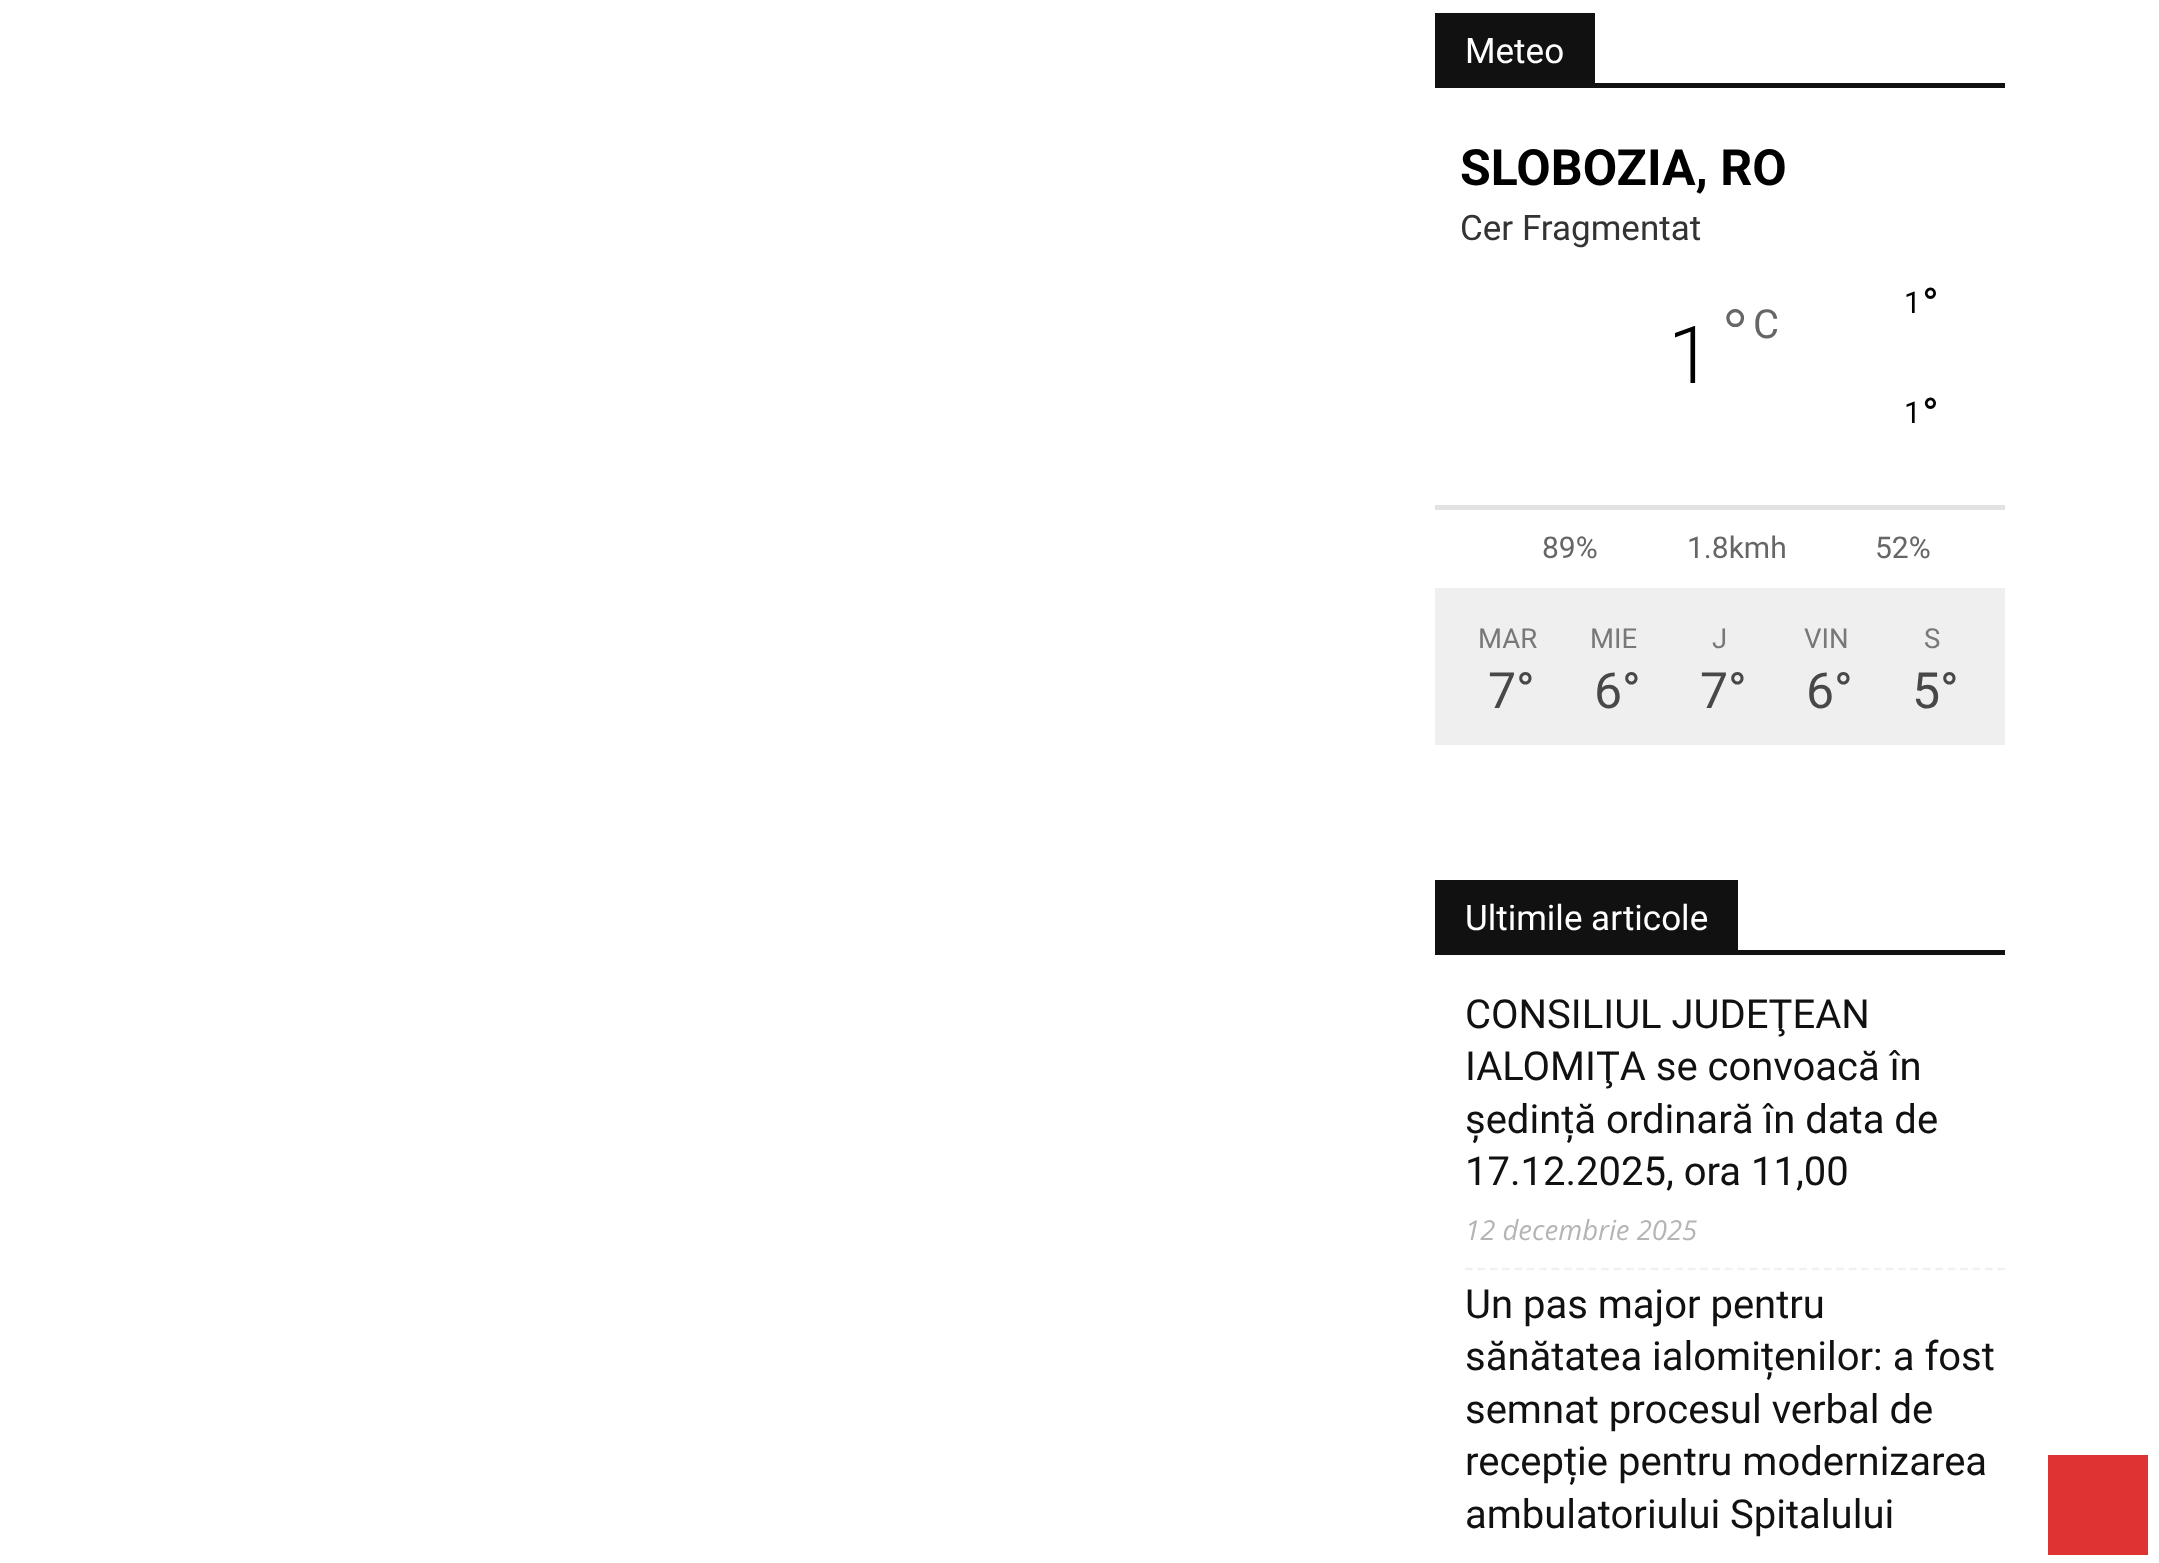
(async () => {
    const canvas = document.querySelector("canvas");
    canvas.width = 2159;
    canvas.height = 1563;
    const context = canvas.getContext("2d");
    context.miterLimit = 4;
    context.fontKerning = "normal";
    function write(s, x, y, font, color) {
        context.font = font;
        context.fillStyle = color;
        context.fillText(s, x, y);
    }
    function block(x, y, w, h, color) {
        context.fillStyle = color;
        context.fillRect(x, y, w, h);
    }

    block(0, 0, 2159, 1563, "rgb(255, 255, 255)");
    block(1435, 83, 570, 5, "rgb(17, 17, 17)");
    block(1435, 13, 160, 70, "rgb(17, 17, 17)");
    write("Meteo", 1465, 63, "35px Roboto", "rgb(255, 255, 255)");
    write("SLOBOZIA, RO", 1460, 185, "bold 50px Roboto", "rgb(0, 0, 0)");
    write("Cer Fragmentat", 1460, 240, "35px Roboto", "rgb(51, 51, 51)");
    write("1", 1668, 383, "300 80px Roboto", "rgb(0, 0, 0)");
    write("°", 1721, 363, "300 75px Roboto", "rgb(102, 102, 102)");
    write("C", 1753, 338, "40px Roboto", "rgb(102, 102, 102)");
    write("1", 1904, 313, "30px Roboto", "rgb(0, 0, 0)");
    write("°", 1922, 320, "45px Roboto", "rgb(0, 0, 0)");
    write("1", 1904, 423, "30px Roboto", "rgb(0, 0, 0)");
    write("°", 1922, 430, "45px Roboto", "rgb(0, 0, 0)");
    block(1435, 505, 570, 5, "rgb(226, 226, 226)");
    write("89%", 1542, 558, "30px Roboto", "rgb(102, 102, 102)");
    write("1.8kmh", 1687, 558, "30px Roboto", "rgb(102, 102, 102)");
    write("52%", 1875, 558, "30px Roboto", "rgb(102, 102, 102)");
    block(1435, 588, 570, 157, "rgb(239, 239, 239)");
    write("MAR", 1478, 648, "27.5px Roboto", "rgb(120, 120, 120)");
    write("7°", 1488, 708, "50px Roboto", "rgb(72, 72, 72)");
    write("MIE", 1590, 648, "27.5px Roboto", "rgb(120, 120, 120)");
    write("6°", 1594, 708, "50px Roboto", "rgb(72, 72, 72)");
    write("J", 1712, 648, "27.5px Roboto", "rgb(120, 120, 120)");
    write("7°", 1700, 708, "50px Roboto", "rgb(72, 72, 72)");
    write("VIN", 1804, 648, "27.5px Roboto", "rgb(120, 120, 120)");
    write("6°", 1806, 708, "50px Roboto", "rgb(72, 72, 72)");
    write("S", 1924, 648, "27.5px Roboto", "rgb(120, 120, 120)");
    write("5°", 1912, 708, "50px Roboto", "rgb(72, 72, 72)");
    block(1435, 950, 570, 5, "rgb(17, 17, 17)");
    block(1435, 880, 303, 70, "rgb(17, 17, 17)");
    write("Ultimile articole", 1465, 930, "35px Roboto", "rgb(255, 255, 255)");
    context.beginPath();
    context.moveTo(1465, 1269);
    context.lineTo(2005, 1269);
    context.strokeStyle = "rgb(241, 241, 241)";
    context.lineWidth = 2.5;
    context.setLineDash([7.5, 4.88]);
    context.stroke();
    write("CONSILIUL JUDEŢEAN", 1465, 1028, "40px Roboto", "rgb(17, 17, 17)");
    write("IALOMIŢA se convoacă în", 1465, 1080, "40px Roboto", "rgb(17, 17, 17)");
    write("ședință ordinară în data de", 1465, 1133, "40px Roboto", "rgb(17, 17, 17)");
    write("17.12.2025, ora 11,00", 1465, 1185, "40px Roboto", "rgb(17, 17, 17)");
    write("12 decembrie 2025", 1465, 1240, "italic 27.5px Open Sans", "rgb(181, 181, 181)");
    write("Un pas major pentru", 1465, 1318, "40px Roboto", "rgb(17, 17, 17)");
    write("sănătatea ialomițenilor: a fost", 1465, 1370, "40px Roboto", "rgb(17, 17, 17)");
    write("semnat procesul verbal de", 1465, 1423, "40px Roboto", "rgb(17, 17, 17)");
    write("recepție pentru modernizarea", 1465, 1475, "40px Roboto", "rgb(17, 17, 17)");
    write("ambulatoriului Spitalului", 1465, 1528, "40px Roboto", "rgb(17, 17, 17)");
    block(2048, 1455, 100, 100, "rgb(221, 51, 51)");
})();
